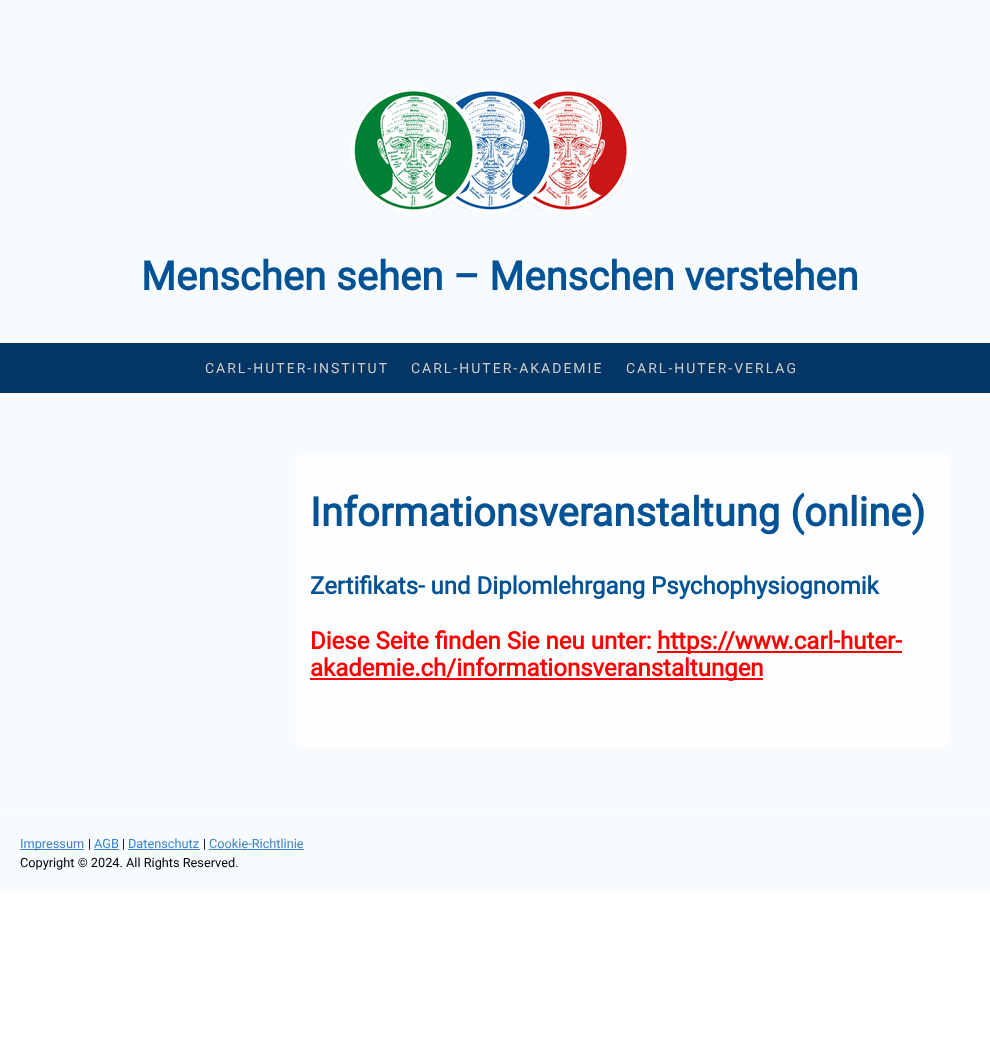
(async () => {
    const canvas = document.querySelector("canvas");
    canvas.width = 990;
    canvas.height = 1063;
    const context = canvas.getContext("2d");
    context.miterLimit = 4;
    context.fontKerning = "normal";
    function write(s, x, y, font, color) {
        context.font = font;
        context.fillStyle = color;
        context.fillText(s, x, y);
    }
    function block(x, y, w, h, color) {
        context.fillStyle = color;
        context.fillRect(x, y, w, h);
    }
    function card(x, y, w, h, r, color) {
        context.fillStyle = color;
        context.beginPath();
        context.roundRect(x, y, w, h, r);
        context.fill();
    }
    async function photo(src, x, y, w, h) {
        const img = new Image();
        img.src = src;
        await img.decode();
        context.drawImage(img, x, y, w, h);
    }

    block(0, 0, 990, 1063, "rgb(255, 255, 255)");
    block(0, 0, 990, 343, "rgb(248, 251, 254)");
    await photo("media/1.png", 350, 87, 281, 127);
    write("Menschen sehen – Menschen verstehen", 141, 290, "bold 40px Roboto", "rgb(2, 82, 150)");
    block(0, 343, 990, 50, "rgb(3, 54, 100)");
    context.letterSpacing = "2px";
    write("CARL-HUTER-INSTITUT", 205, 373, "14px Roboto", "rgb(204, 204, 204)");
    write("CARL-HUTER-AKADEMIE", 411, 373, "14px Roboto", "rgb(204, 204, 204)");
    write("CARL-HUTER-VERLAG", 626, 373, "14px Roboto", "rgb(204, 204, 204)");
    block(0, 393, 990, 420, "rgb(248, 251, 254)");
    card(295, 453, 655, 295, 10, "rgb(254, 254, 255)");
    context.letterSpacing = "0px";
    write("Informationsveranstaltung (online)", 310, 526, "bold 40px Roboto", "rgb(2, 82, 150)");
    write("Zertifikats- und Diplomlehrgang Psychophysiognomik", 310, 594, "bold 24px Roboto", "rgb(2, 82, 150)");
    write("Diese Seite finden Sie neu unter:", 310, 649, "bold 24px Roboto", "rgb(255, 0, 0)");
    block(657, 651, 245, 2, "rgb(255, 0, 0)");
    write("https://www.carl-huter-", 657, 649, "bold 24px Roboto", "rgb(255, 0, 0)");
    block(310, 678, 453, 2, "rgb(255, 0, 0)");
    write("akademie.ch/informationsveranstaltungen", 310, 676, "bold 24px Roboto", "rgb(255, 0, 0)");
    block(0, 814, 990, 78, "rgb(248, 251, 254)");
    block(20, 849, 64, 1, "rgb(57, 132, 200)");
    write("Impressum", 20, 848, "12.75px Roboto", "rgb(57, 132, 200)");
    write("|", 88, 848, "12.75px Roboto", "rgb(0, 0, 0)");
    write("AGB", 94, 848, "12.75px Roboto", "rgb(57, 132, 200)");
    block(94, 849, 25, 1, "rgb(57, 132, 200)");
    write("|", 122, 848, "12.75px Roboto", "rgb(0, 0, 0)");
    write("Datenschutz", 128, 848, "12.75px Roboto", "rgb(57, 132, 200)");
    block(128, 849, 72, 1, "rgb(57, 132, 200)");
    write("|", 203, 848, "12.75px Roboto", "rgb(0, 0, 0)");
    write("Cookie-Richtlinie", 209, 848, "12.75px Roboto", "rgb(57, 132, 200)");
    block(209, 849, 95, 1, "rgb(57, 132, 200)");
    write("Copyright © 2024. All Rights Reserved.", 20, 867, "12.75px Roboto", "rgb(0, 0, 0)");
})();
